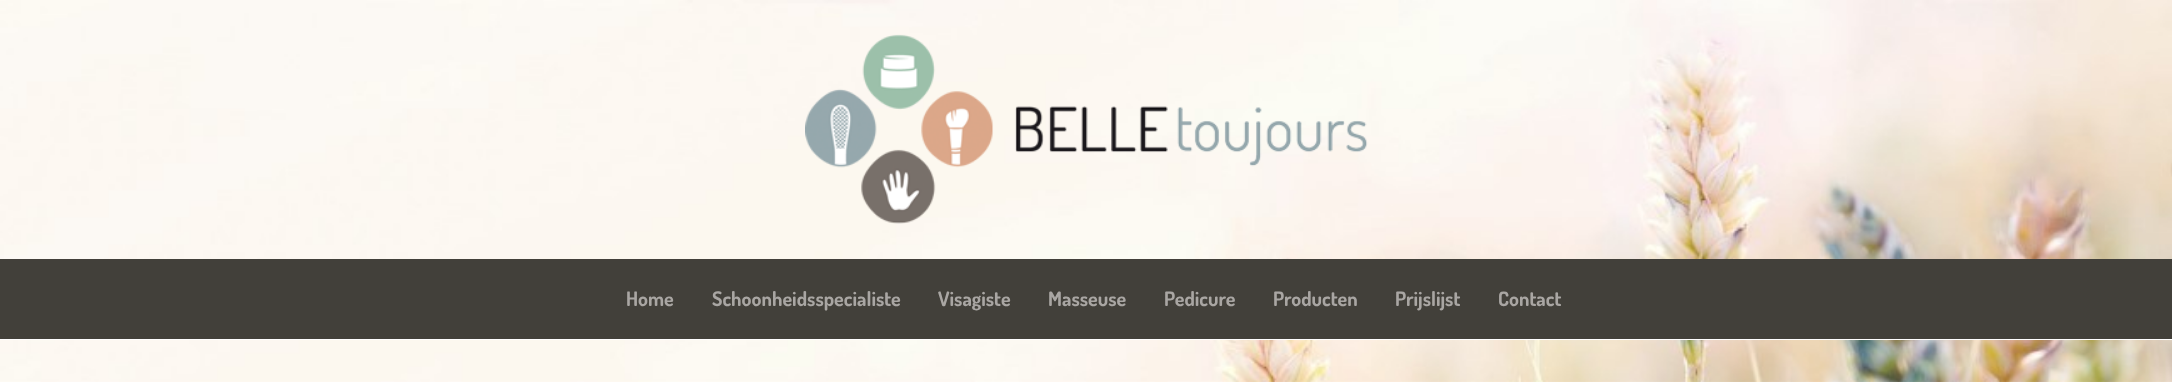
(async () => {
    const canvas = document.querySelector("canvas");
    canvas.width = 2172;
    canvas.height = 382;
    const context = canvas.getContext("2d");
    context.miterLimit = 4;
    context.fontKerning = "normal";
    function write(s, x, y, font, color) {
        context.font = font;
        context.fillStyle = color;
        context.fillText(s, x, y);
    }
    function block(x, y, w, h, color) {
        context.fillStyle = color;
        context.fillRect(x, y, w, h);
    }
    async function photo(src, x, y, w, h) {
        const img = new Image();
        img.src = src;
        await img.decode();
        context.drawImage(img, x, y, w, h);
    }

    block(0, 0, 2172, 382, "rgb(255, 255, 255)");
    await photo("media/1.png", 0, 381, 2172, 1);
    await photo("media/2.png", 0, 0, 2172, 382);
    block(0, 339, 2172, 1, "rgb(255, 255, 255)");
    await photo("media/3.png", 805, 34, 563, 190);
    block(0, 259, 2172, 80, "rgb(66, 64, 58)");
    write("Home", 626, 306, "bold 20px Dosis", "rgb(169, 166, 163)");
    write("Schoonheidsspecialiste", 712, 306, "bold 20px Dosis", "rgb(169, 166, 163)");
    write("Visagiste", 938, 306, "bold 20px Dosis", "rgb(169, 166, 163)");
    write("Masseuse", 1048, 306, "bold 20px Dosis", "rgb(169, 166, 163)");
    write("Pedicure", 1164, 306, "bold 20px Dosis", "rgb(169, 166, 163)");
    write("Producten", 1273, 306, "bold 20px Dosis", "rgb(169, 166, 163)");
    write("Prijslijst", 1395, 306, "bold 20px Dosis", "rgb(169, 166, 163)");
    write("Contact", 1498, 306, "bold 20px Dosis", "rgb(169, 166, 163)");
})();
